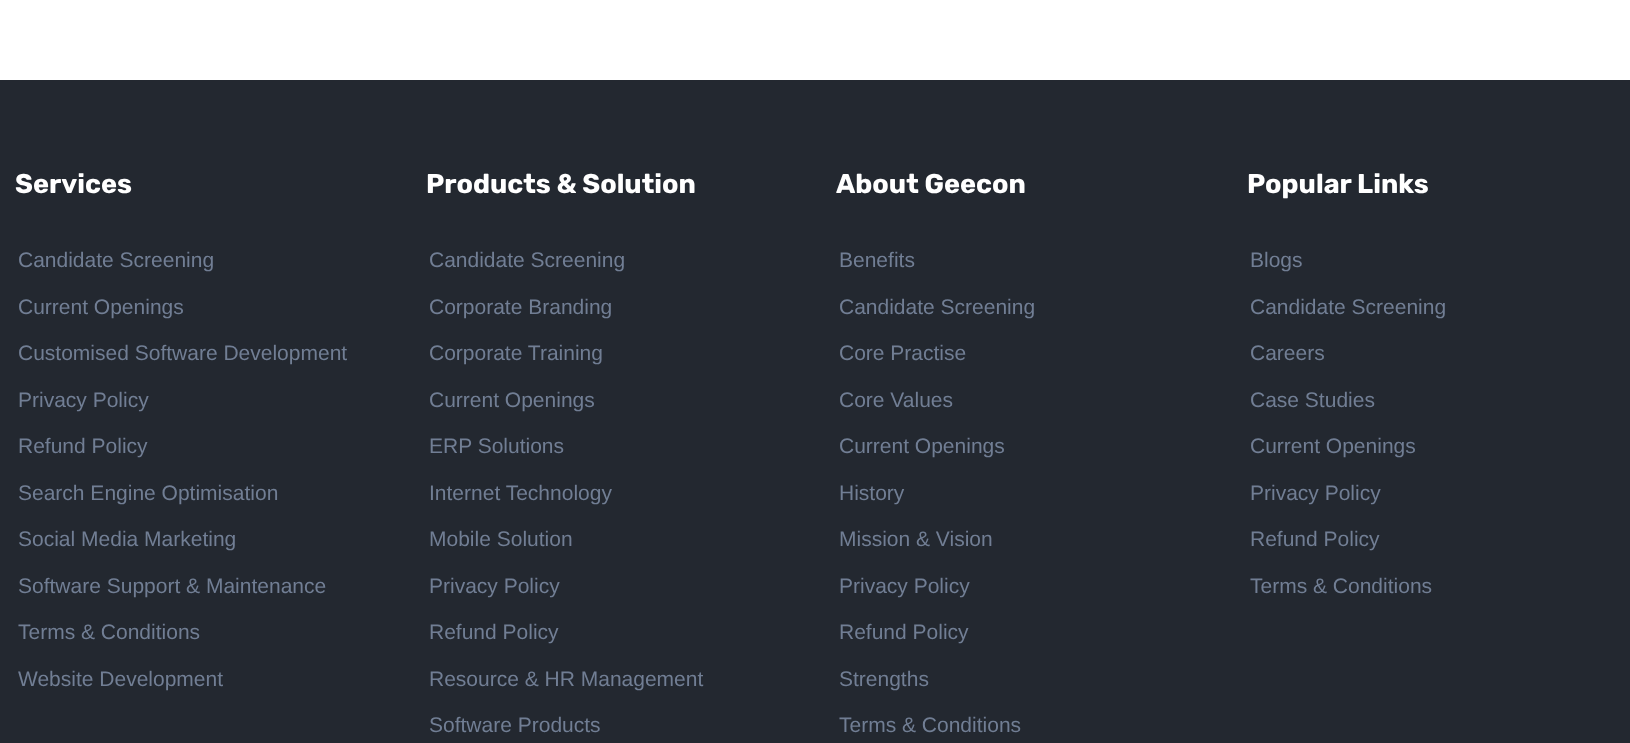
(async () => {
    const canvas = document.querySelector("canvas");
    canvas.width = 1630;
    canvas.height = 743;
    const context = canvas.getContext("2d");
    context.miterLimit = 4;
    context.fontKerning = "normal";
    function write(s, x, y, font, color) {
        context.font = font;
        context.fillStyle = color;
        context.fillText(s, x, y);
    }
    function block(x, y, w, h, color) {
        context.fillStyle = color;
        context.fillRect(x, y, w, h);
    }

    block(0, 0, 1630, 743, "rgb(255, 255, 255)");
    block(0, 80, 1630, 663, "rgb(35, 40, 48)");
    write("Services", 15, 193, "bold 27px Rubik", "rgb(255, 255, 255)");
    write("Candidate Screening", 18, 267, "21px Liberation Sans", "rgb(113, 126, 148)");
    write("Current Openings", 18, 314, "21px Liberation Sans", "rgb(113, 126, 148)");
    write("Customised Software Development", 18, 360, "21px Liberation Sans", "rgb(113, 126, 148)");
    write("Privacy Policy", 18, 407, "21px Liberation Sans", "rgb(113, 126, 148)");
    write("Refund Policy", 18, 453, "21px Liberation Sans", "rgb(113, 126, 148)");
    write("Search Engine Optimisation", 18, 500, "21px Liberation Sans", "rgb(113, 126, 148)");
    write("Social Media Marketing", 18, 546, "21px Liberation Sans", "rgb(113, 126, 148)");
    write("Software Support & Maintenance", 18, 593, "21px Liberation Sans", "rgb(113, 126, 148)");
    write("Terms & Conditions", 18, 639, "21px Liberation Sans", "rgb(113, 126, 148)");
    write("Website Development", 18, 686, "21px Liberation Sans", "rgb(113, 126, 148)");
    write("Products & Solution", 426, 193, "bold 27px Rubik", "rgb(255, 255, 255)");
    write("Candidate Screening", 429, 267, "21px Liberation Sans", "rgb(113, 126, 148)");
    write("Corporate Branding", 429, 314, "21px Liberation Sans", "rgb(113, 126, 148)");
    write("Corporate Training", 429, 360, "21px Liberation Sans", "rgb(113, 126, 148)");
    write("Current Openings", 429, 407, "21px Liberation Sans", "rgb(113, 126, 148)");
    write("ERP Solutions", 429, 453, "21px Liberation Sans", "rgb(113, 126, 148)");
    write("Internet Technology", 429, 500, "21px Liberation Sans", "rgb(113, 126, 148)");
    write("Mobile Solution", 429, 546, "21px Liberation Sans", "rgb(113, 126, 148)");
    write("Privacy Policy", 429, 593, "21px Liberation Sans", "rgb(113, 126, 148)");
    write("Refund Policy", 429, 639, "21px Liberation Sans", "rgb(113, 126, 148)");
    write("Resource & HR Management", 429, 686, "21px Liberation Sans", "rgb(113, 126, 148)");
    write("Software Products", 429, 732, "21px Liberation Sans", "rgb(113, 126, 148)");
    write("About Geecon", 836, 193, "bold 27px Rubik", "rgb(255, 255, 255)");
    write("Benefits", 839, 267, "21px Liberation Sans", "rgb(113, 126, 148)");
    write("Candidate Screening", 839, 314, "21px Liberation Sans", "rgb(113, 126, 148)");
    write("Core Practise", 839, 360, "21px Liberation Sans", "rgb(113, 126, 148)");
    write("Core Values", 839, 407, "21px Liberation Sans", "rgb(113, 126, 148)");
    write("Current Openings", 839, 453, "21px Liberation Sans", "rgb(113, 126, 148)");
    write("History", 839, 500, "21px Liberation Sans", "rgb(113, 126, 148)");
    write("Mission & Vision", 839, 546, "21px Liberation Sans", "rgb(113, 126, 148)");
    write("Privacy Policy", 839, 593, "21px Liberation Sans", "rgb(113, 126, 148)");
    write("Refund Policy", 839, 639, "21px Liberation Sans", "rgb(113, 126, 148)");
    write("Strengths", 839, 686, "21px Liberation Sans", "rgb(113, 126, 148)");
    write("Terms & Conditions", 839, 732, "21px Liberation Sans", "rgb(113, 126, 148)");
    write("Popular Links", 1247, 193, "bold 27px Rubik", "rgb(255, 255, 255)");
    write("Blogs", 1250, 267, "21px Liberation Sans", "rgb(113, 126, 148)");
    write("Candidate Screening", 1250, 314, "21px Liberation Sans", "rgb(113, 126, 148)");
    write("Careers", 1250, 360, "21px Liberation Sans", "rgb(113, 126, 148)");
    write("Case Studies", 1250, 407, "21px Liberation Sans", "rgb(113, 126, 148)");
    write("Current Openings", 1250, 453, "21px Liberation Sans", "rgb(113, 126, 148)");
    write("Privacy Policy", 1250, 500, "21px Liberation Sans", "rgb(113, 126, 148)");
    write("Refund Policy", 1250, 546, "21px Liberation Sans", "rgb(113, 126, 148)");
    write("Terms & Conditions", 1250, 593, "21px Liberation Sans", "rgb(113, 126, 148)");
})();
